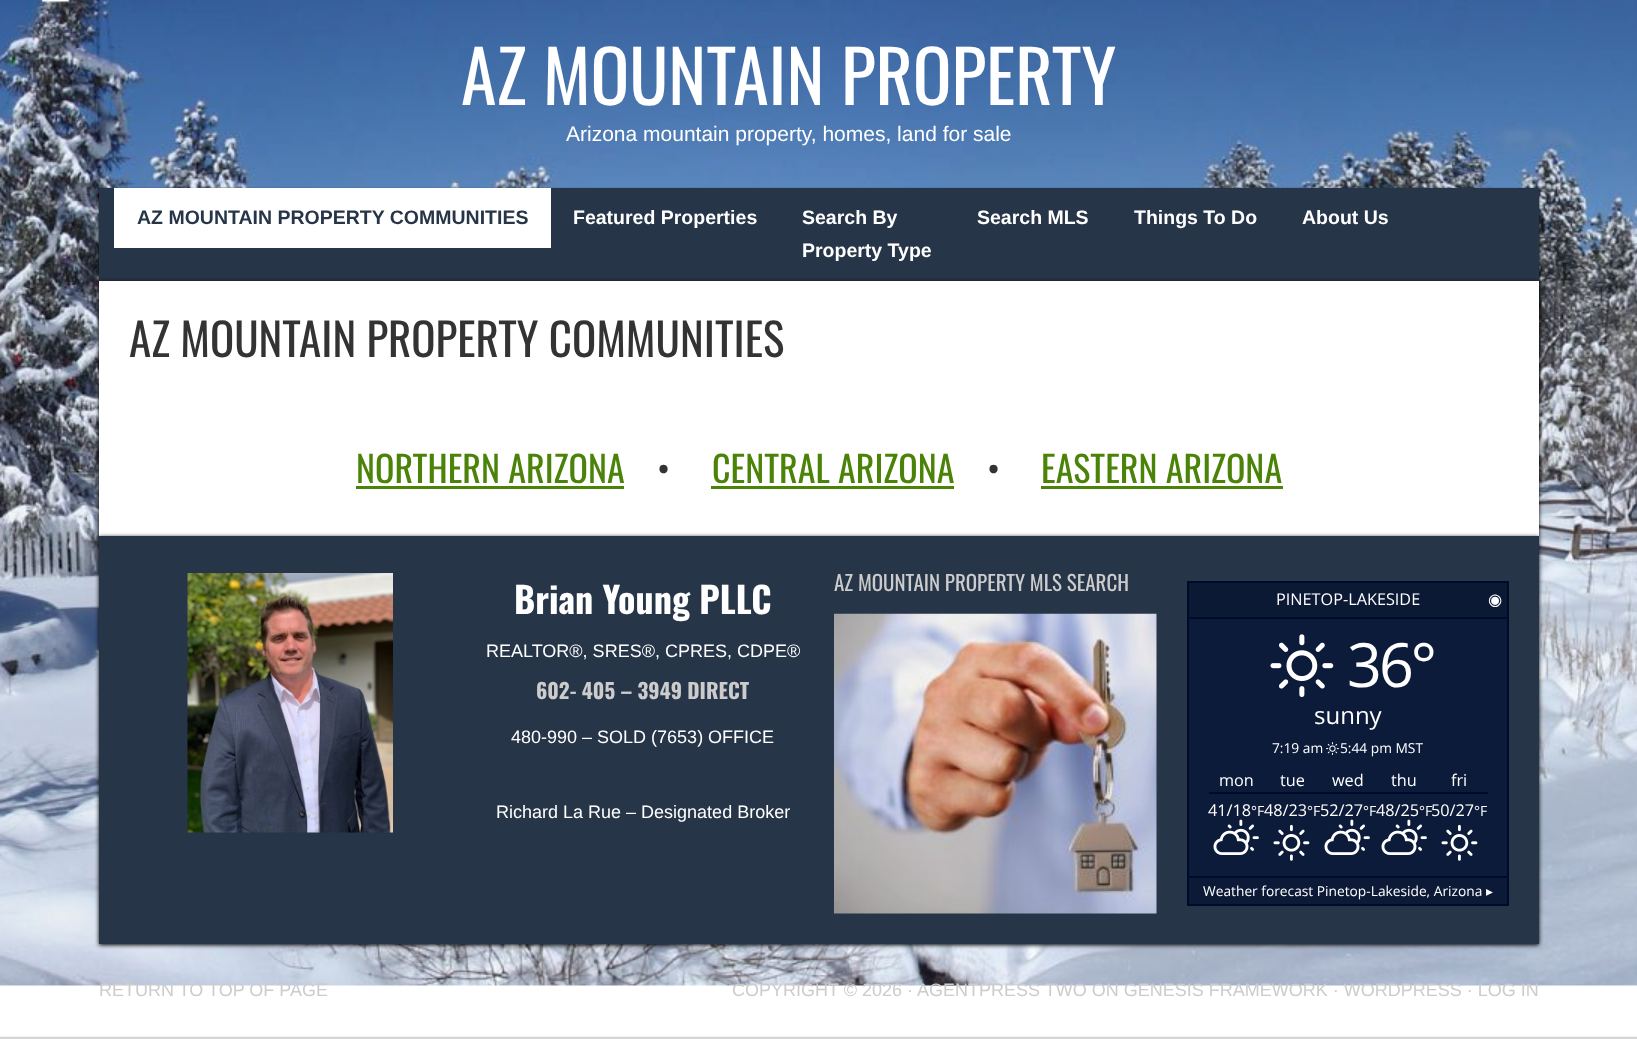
(async () => {
    const canvas = document.querySelector("canvas");
    canvas.width = 1637;
    canvas.height = 1041;
    const context = canvas.getContext("2d");
    context.miterLimit = 4;
    context.fontKerning = "normal";
    function write(s, x, y, font, color) {
        context.font = font;
        context.fillStyle = color;
        context.fillText(s, x, y);
    }
    function block(x, y, w, h, color) {
        context.fillStyle = color;
        context.fillRect(x, y, w, h);
    }
    async function photo(src, x, y, w, h) {
        const img = new Image();
        img.src = src;
        await img.decode();
        context.drawImage(img, x, y, w, h);
    }

    block(0, 0, 1637, 1041, "rgb(255, 255, 255)");
    await photo("media/1.png", 0, 0, 1637, 986);
    write("AZ MOUNTAIN PROPERTY", 461, 105, "72px Oswald", "rgb(255, 255, 255)");
    write("Arizona mountain property, homes, land for sale", 566, 141, "21px Liberation Sans", "rgb(255, 255, 255)");
    context.fillStyle = "rgb(0, 0, 0)";
    context.filter = "blur(1px)";
    context.beginPath();
    context.rect(99, 189, 1440, 93);
    context.fill();
    context.filter = "none";
    block(99, 188, 1440, 93, "rgb(39, 53, 73)");
    block(114, 188, 437, 60, "rgb(255, 255, 255)");
    write("AZ MOUNTAIN PROPERTY COMMUNITIES", 137, 224, "bold 19.5px Liberation Sans", "rgb(39, 53, 73)");
    write("Featured Properties", 573, 224, "bold 19.5px Liberation Sans", "rgb(255, 255, 255)");
    write("Search By", 802, 224, "bold 19.5px Liberation Sans", "rgb(255, 255, 255)");
    write("Property Type", 802, 257, "bold 19.5px Liberation Sans", "rgb(255, 255, 255)");
    write("Search MLS", 977, 224, "bold 19.5px Liberation Sans", "rgb(255, 255, 255)");
    write("Things To Do", 1134, 224, "bold 19.5px Liberation Sans", "rgb(255, 255, 255)");
    write("About Us", 1302, 224, "bold 19.5px Liberation Sans", "rgb(255, 255, 255)");
    context.fillStyle = "rgb(0, 0, 0)";
    context.filter = "blur(2px)";
    context.beginPath();
    context.rect(99, 282, 1440, 255);
    context.fill();
    context.filter = "none";
    block(99, 281, 1440, 255, "rgb(255, 255, 255)");
    write("AZ MOUNTAIN PROPERTY COMMUNITIES", 129, 357, "45px Oswald", "rgb(51, 51, 51)");
    write("NORTHERN ARIZONA", 356, 483, "36px Oswald", "rgb(75, 131, 8)");
    block(356, 486, 268, 3, "rgb(75, 131, 8)");
    write("•", 657, 483, "36px Oswald", "rgb(51, 51, 51)");
    write("CENTRAL ARIZONA", 712, 483, "36px Oswald", "rgb(75, 131, 8)");
    block(711, 486, 243, 3, "rgb(75, 131, 8)");
    write("•", 987, 483, "36px Oswald", "rgb(51, 51, 51)");
    write("EASTERN ARIZONA", 1041, 483, "36px Oswald", "rgb(75, 131, 8)");
    block(1041, 486, 242, 3, "rgb(75, 131, 8)");
    context.fillStyle = "rgb(0, 0, 0)";
    context.filter = "blur(2px)";
    context.beginPath();
    context.rect(99, 537, 1440, 408);
    context.fill();
    context.filter = "none";
    block(99, 536, 1440, 408, "rgb(39, 53, 73)");
    await photo("media/2.png", 187, 573, 206, 260);
    write("Brian Young PLLC", 514, 614, "bold 36px Oswald", "rgb(255, 255, 255)");
    write("REALTOR®, SRES®, CPRES, CDPE®", 486, 657, "18px Liberation Sans", "rgb(255, 255, 255)");
    write("602- 405 – 3949 DIRECT", 536, 699, "bold 21px Oswald", "rgb(204, 204, 204)");
    write("480-990 – SOLD (7653) OFFICE", 511, 743, "18px Liberation Sans", "rgb(255, 255, 255)");
    write("Richard La Rue – Designated Broker", 496, 818, "18px Liberation Sans", "rgb(255, 255, 255)");
    write("AZ MOUNTAIN PROPERTY MLS SEARCH", 834, 591, "21px Oswald", "rgb(204, 204, 204)");
    await photo("media/3.png", 834, 613, 323, 301);
    context.fillStyle = "rgb(13, 27, 58)";
    context.beginPath();
    context.rect(1188, 582, 320, 323);
    context.fill();
    context.strokeStyle = "rgb(0, 10, 41)";
    context.lineWidth = 2;
    context.stroke();
    block(1188, 582, 320, 35, "rgba(0, 0, 0, 0.07)");
    block(1188, 617, 320, 2, "rgb(0, 10, 41)");
    write("PINETOP-LAKESIDE", 1276, 605, "16.25px Open Sans", "rgb(255, 255, 255)");
    write("◉", 1488, 605, "16.25px DejaVu Sans", "rgb(255, 255, 255)");
    await photo("media/4.png", 1270, 634, 64, 63);
    context.letterSpacing = "-3px";
    write("36°", 1347, 687, "61px Open Sans", "rgb(255, 255, 255)");
    context.letterSpacing = "0px";
    write("sunny", 1314, 724, "24px Open Sans", "rgb(255, 255, 255)");
    write("7:19 am", 1272, 753, "13.75px Open Sans", "rgb(255, 255, 255)");
    await photo("media/5.png", 1326, 742, 13, 13);
    write("5:44 pm MST", 1340, 753, "13.75px Open Sans", "rgb(255, 255, 255)");
    block(1209, 792, 279, 2, "rgb(0, 10, 41)");
    write("mon", 1219, 786, "16.25px Open Sans", "rgb(255, 255, 255)");
    write("tue", 1280, 786, "16.25px Open Sans", "rgb(255, 255, 255)");
    write("wed", 1332, 786, "16.25px Open Sans", "rgb(255, 255, 255)");
    write("thu", 1391, 786, "16.25px Open Sans", "rgb(255, 255, 255)");
    write("fri", 1451, 786, "16.25px Open Sans", "rgb(255, 255, 255)");
    write("41/18", 1208, 816, "16.25px Open Sans", "rgb(255, 255, 255)");
    write("°F", 1251, 816, "14px Open Sans", "rgb(255, 255, 255)");
    await photo("media/6.png", 1213, 819, 46, 36);
    write("48/23", 1264, 816, "16.25px Open Sans", "rgb(255, 255, 255)");
    write("°F", 1307, 816, "14px Open Sans", "rgb(255, 255, 255)");
    await photo("media/7.png", 1273, 824, 37, 37);
    write("52/27", 1320, 816, "16.25px Open Sans", "rgb(255, 255, 255)");
    write("°F", 1363, 816, "14px Open Sans", "rgb(255, 255, 255)");
    await photo("media/6.png", 1324, 819, 46, 36);
    write("48/25", 1376, 816, "16.25px Open Sans", "rgb(255, 255, 255)");
    write("°F", 1419, 816, "14px Open Sans", "rgb(255, 255, 255)");
    await photo("media/6.png", 1381, 819, 46, 36);
    write("50/27", 1431, 816, "16.25px Open Sans", "rgb(255, 255, 255)");
    write("°F", 1474, 816, "14px Open Sans", "rgb(255, 255, 255)");
    await photo("media/7.png", 1441, 824, 37, 37);
    block(1189, 878, 318, 26, "rgba(0, 0, 0, 0.05)");
    block(1188, 876, 320, 2, "rgb(0, 10, 41)");
    write("Weather forecast Pinetop-Lakeside, Arizona", 1203, 896, "13.75px Open Sans", "rgb(255, 255, 255)");
    write("▸", 1486, 896, "13.75px DejaVu Sans", "rgb(255, 255, 255)");
    write("RETURN TO TOP OF PAGE", 99, 996, "18px Liberation Sans", "rgb(204, 204, 204)");
    write("COPYRIGHT © 2026 ·", 732, 996, "18px Liberation Sans", "rgb(204, 204, 204)");
    write("AGENTPRESS TWO ON GENESIS FRAMEWORK · WORDPRESS · LOG IN", 917, 996, "18px Liberation Sans", "rgb(204, 204, 204)");
    block(0, 1036, 1637, 1, "rgb(241, 241, 241)");
    block(0, 1037, 1637, 2, "rgb(213, 213, 213)");
})();
